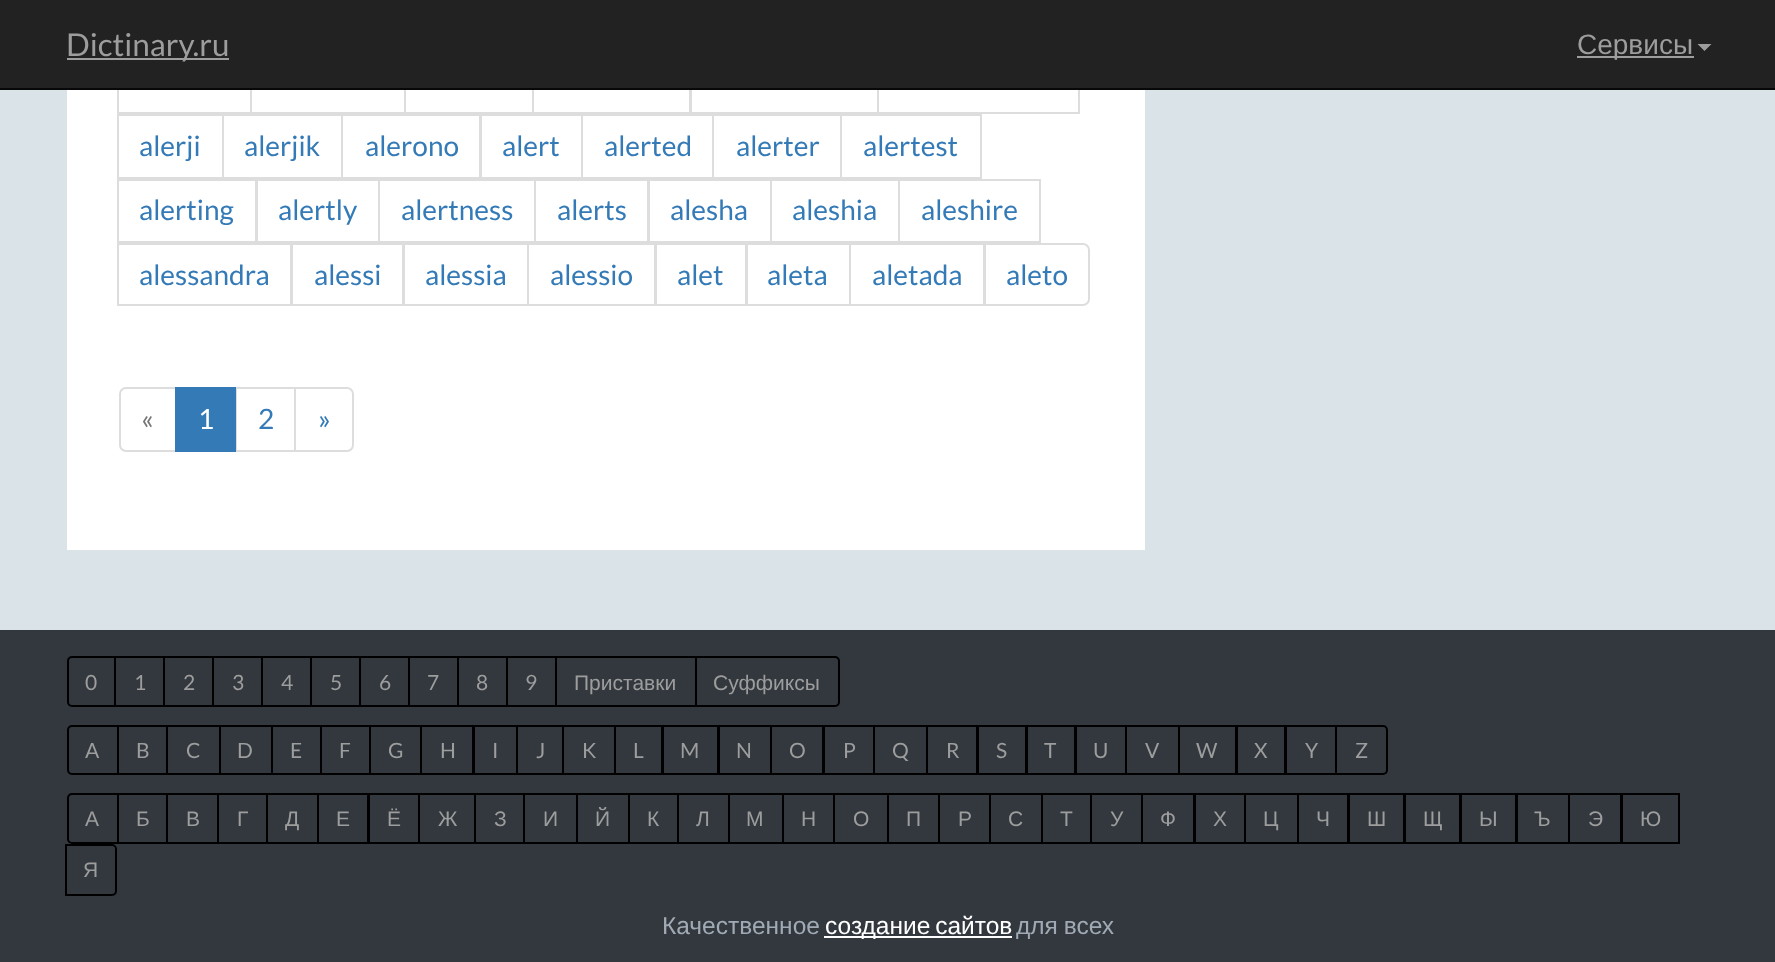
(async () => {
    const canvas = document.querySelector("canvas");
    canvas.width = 1775;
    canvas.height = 962;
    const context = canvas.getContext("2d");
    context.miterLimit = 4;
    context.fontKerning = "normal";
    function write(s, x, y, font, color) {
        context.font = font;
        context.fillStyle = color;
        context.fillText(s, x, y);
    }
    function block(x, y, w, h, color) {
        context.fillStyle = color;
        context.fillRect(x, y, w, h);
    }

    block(0, 0, 1775, 962, "rgb(218, 227, 231)");
    block(67, 90, 1078, 460, "rgb(255, 255, 255)");
    context.strokeStyle = "rgb(221, 221, 221)";
    context.lineWidth = 2;
    context.strokeRect(118, 50, 133, 63);
    context.strokeRect(251, 50, 154, 63);
    context.strokeRect(405, 50, 128, 63);
    context.strokeRect(533, 50, 157, 63);
    context.strokeRect(691, 50, 187, 63);
    context.strokeRect(878, 50, 201, 63);
    block(0, 0, 1775, 88, "rgb(34, 34, 34)");
    block(0, 88, 1775, 2, "rgb(8, 8, 8)");
    block(67, 58, 162, 2, "rgb(157, 157, 157)");
    write("Dictinary.ru", 66, 56, "31.5px Lato", "rgb(157, 157, 157)");
    block(1577, 56, 117, 2, "rgb(157, 157, 157)");
    write("Сервисы", 1577, 54, "28px Liberation Sans", "rgb(157, 157, 157)");
    context.beginPath();
    context.moveTo(1697.5, 44);
    context.lineTo(1711.5, 44);
    context.lineTo(1704.5, 51);
    context.closePath();
    context.fill();
    context.strokeRect(118, 115, 105, 63);
    write("alerji", 139, 156, "28px Lato", "rgb(51, 122, 183)");
    context.strokeRect(223, 115, 119, 63);
    write("alerjik", 244, 156, "28px Lato", "rgb(51, 122, 183)");
    context.strokeRect(342, 115, 138, 63);
    write("alerono", 365, 156, "28px Lato", "rgb(51, 122, 183)");
    context.strokeRect(481, 115, 101, 63);
    write("alert", 502, 156, "28px Lato", "rgb(51, 122, 183)");
    context.strokeRect(582, 115, 131, 63);
    write("alerted", 604, 156, "28px Lato", "rgb(51, 122, 183)");
    context.strokeRect(713, 115, 128, 63);
    write("alerter", 736, 156, "28px Lato", "rgb(51, 122, 183)");
    context.strokeRect(841, 115, 140, 63);
    write("alertest", 863, 156, "28px Lato", "rgb(51, 122, 183)");
    context.strokeRect(118, 180, 138, 62);
    write("alerting", 139, 220, "28px Lato", "rgb(51, 122, 183)");
    context.strokeRect(257, 180, 122, 62);
    write("alertly", 278, 220, "28px Lato", "rgb(51, 122, 183)");
    context.strokeRect(379, 180, 156, 62);
    write("alertness", 401, 220, "28px Lato", "rgb(51, 122, 183)");
    context.strokeRect(535, 180, 113, 62);
    write("alerts", 557, 220, "28px Lato", "rgb(51, 122, 183)");
    context.strokeRect(649, 180, 122, 62);
    write("alesha", 670, 220, "28px Lato", "rgb(51, 122, 183)");
    context.strokeRect(771, 180, 128, 62);
    write("aleshia", 792, 220, "28px Lato", "rgb(51, 122, 183)");
    context.strokeRect(899, 180, 141, 62);
    write("aleshire", 921, 220, "28px Lato", "rgb(51, 122, 183)");
    context.strokeRect(118, 244, 173, 61);
    write("alessandra", 139, 285, "28px Lato", "rgb(51, 122, 183)");
    context.strokeRect(292, 244, 111, 61);
    write("alessi", 314, 285, "28px Lato", "rgb(51, 122, 183)");
    context.strokeRect(404, 244, 124, 61);
    write("alessia", 425, 285, "28px Lato", "rgb(51, 122, 183)");
    context.strokeRect(528, 244, 127, 61);
    write("alessio", 550, 285, "28px Lato", "rgb(51, 122, 183)");
    context.strokeRect(656, 244, 90, 61);
    write("alet", 677, 285, "28px Lato", "rgb(51, 122, 183)");
    context.strokeRect(747, 244, 103, 61);
    write("aleta", 767, 285, "28px Lato", "rgb(51, 122, 183)");
    context.strokeRect(850, 244, 134, 61);
    write("aletada", 872, 285, "28px Lato", "rgb(51, 122, 183)");
    context.fillStyle = "rgb(255, 255, 255)";
    context.beginPath();
    context.roundRect(985, 244, 104, 61, [0, 6, 6, 0]);
    context.fill();
    context.stroke();
    write("aleto", 1006, 285, "28px Lato", "rgb(51, 122, 183)");
    context.beginPath();
    context.roundRect(120, 388, 56, 63, [6, 0, 0, 6]);
    context.stroke();
    write("«", 141, 429, "28px Lato", "rgb(119, 119, 119)");
    context.strokeRect(236, 388, 59, 63);
    block(175, 387, 61, 65, "rgb(51, 122, 183)");
    write("1", 198, 429, "28px Lato", "rgb(255, 255, 255)");
    write("2", 258, 429, "28px Lato", "rgb(51, 122, 183)");
    context.fillStyle = "rgb(255, 255, 255)";
    context.beginPath();
    context.roundRect(295, 388, 58, 63, [0, 6, 6, 0]);
    context.fill();
    context.stroke();
    write("»", 318, 429, "28px Lato", "rgb(51, 122, 183)");
    block(0, 630, 1775, 332, "rgb(50, 56, 62)");
    context.beginPath();
    context.roundRect(68, 657, 47, 49, [4, 0, 0, 4]);
    context.strokeStyle = "rgb(0, 0, 0)";
    context.stroke();
    write("0", 85, 690, "21px Lato", "rgb(157, 157, 157)");
    context.strokeRect(115, 657, 49, 49);
    write("1", 134, 690, "21px Lato", "rgb(157, 157, 157)");
    context.strokeRect(164, 657, 49, 49);
    write("2", 183, 690, "21px Lato", "rgb(157, 157, 157)");
    context.strokeRect(213, 657, 49, 49);
    write("3", 232, 690, "21px Lato", "rgb(157, 157, 157)");
    context.strokeRect(262, 657, 49, 49);
    write("4", 281, 690, "21px Lato", "rgb(157, 157, 157)");
    context.strokeRect(311, 657, 49, 49);
    write("5", 330, 690, "21px Lato", "rgb(157, 157, 157)");
    context.strokeRect(360, 657, 49, 49);
    write("6", 379, 690, "21px Lato", "rgb(157, 157, 157)");
    context.strokeRect(409, 657, 49, 49);
    write("7", 427, 690, "21px Lato", "rgb(157, 157, 157)");
    context.strokeRect(458, 657, 49, 49);
    write("8", 476, 690, "21px Lato", "rgb(157, 157, 157)");
    context.strokeRect(507, 657, 49, 49);
    write("9", 525, 690, "21px Lato", "rgb(157, 157, 157)");
    context.strokeRect(556, 657, 140, 49);
    write("Приставки", 574, 690, "21px Liberation Sans", "rgb(157, 157, 157)");
    context.fillStyle = "rgb(50, 56, 62)";
    context.beginPath();
    context.roundRect(696, 657, 143, 49, [0, 4, 4, 0]);
    context.fill();
    context.stroke();
    write("Суффиксы", 713, 690, "21px Liberation Sans", "rgb(157, 157, 157)");
    context.beginPath();
    context.roundRect(68, 726, 50, 48, [4, 0, 0, 4]);
    context.stroke();
    write("A", 85, 758, "21px Lato", "rgb(157, 157, 157)");
    context.strokeRect(118, 726, 49, 48);
    write("B", 136, 758, "21px Lato", "rgb(157, 157, 157)");
    context.strokeRect(167, 726, 53, 48);
    write("C", 186, 758, "21px Lato", "rgb(157, 157, 157)");
    context.strokeRect(220, 726, 52, 48);
    write("D", 237, 758, "21px Lato", "rgb(157, 157, 157)");
    context.strokeRect(272, 726, 49, 48);
    write("E", 290, 758, "21px Lato", "rgb(157, 157, 157)");
    context.strokeRect(321, 726, 49, 48);
    write("F", 339, 758, "21px Lato", "rgb(157, 157, 157)");
    context.strokeRect(370, 726, 51, 48);
    write("G", 388, 758, "21px Lato", "rgb(157, 157, 157)");
    context.strokeRect(421, 726, 52, 48);
    write("H", 440, 758, "21px Lato", "rgb(157, 157, 157)");
    context.strokeRect(474, 726, 43, 48);
    write("I", 492, 758, "21px Lato", "rgb(157, 157, 157)");
    context.strokeRect(517, 726, 46, 48);
    write("J", 536, 758, "21px Lato", "rgb(157, 157, 157)");
    context.strokeRect(563, 726, 52, 48);
    write("K", 582, 758, "21px Lato", "rgb(157, 157, 157)");
    context.strokeRect(615, 726, 47, 48);
    write("L", 633, 758, "21px Lato", "rgb(157, 157, 157)");
    context.strokeRect(663, 726, 55, 48);
    write("M", 680, 758, "21px Lato", "rgb(157, 157, 157)");
    context.strokeRect(719, 726, 52, 48);
    write("N", 736, 758, "21px Lato", "rgb(157, 157, 157)");
    context.strokeRect(771, 726, 52, 48);
    write("O", 789, 758, "21px Lato", "rgb(157, 157, 157)");
    context.strokeRect(824, 726, 50, 48);
    write("P", 843, 758, "21px Lato", "rgb(157, 157, 157)");
    context.strokeRect(874, 726, 53, 48);
    write("Q", 892, 758, "21px Lato", "rgb(157, 157, 157)");
    context.strokeRect(927, 726, 50, 48);
    write("R", 946, 758, "21px Lato", "rgb(157, 157, 157)");
    context.strokeRect(978, 726, 48, 48);
    write("S", 996, 758, "21px Lato", "rgb(157, 157, 157)");
    context.strokeRect(1027, 726, 48, 48);
    write("T", 1044, 758, "21px Lato", "rgb(157, 157, 157)");
    context.strokeRect(1076, 726, 50, 48);
    write("U", 1093, 758, "21px Lato", "rgb(157, 157, 157)");
    context.strokeRect(1126, 726, 53, 48);
    write("V", 1145, 758, "21px Lato", "rgb(157, 157, 157)");
    context.strokeRect(1179, 726, 57, 48);
    write("W", 1196, 758, "21px Lato", "rgb(157, 157, 157)");
    context.strokeRect(1237, 726, 48, 48);
    write("X", 1254, 758, "21px Lato", "rgb(157, 157, 157)");
    context.strokeRect(1286, 726, 50, 48);
    write("Y", 1305, 758, "21px Lato", "rgb(157, 157, 157)");
    context.fillStyle = "rgb(50, 56, 62)";
    context.beginPath();
    context.roundRect(1336, 726, 51, 48, [0, 4, 4, 0]);
    context.fill();
    context.stroke();
    write("Z", 1355, 758, "21px Lato", "rgb(157, 157, 157)");
    context.beginPath();
    context.roundRect(68, 794, 50, 49, [4, 0, 0, 4]);
    context.stroke();
    write("А", 85, 826, "21px Liberation Sans", "rgb(157, 157, 157)");
    context.strokeRect(118, 794, 49, 49);
    write("Б", 136, 826, "21px Liberation Sans", "rgb(157, 157, 157)");
    context.strokeRect(167, 794, 51, 49);
    write("В", 186, 826, "21px Liberation Sans", "rgb(157, 157, 157)");
    context.strokeRect(218, 794, 49, 49);
    write("Г", 237, 826, "21px Liberation Sans", "rgb(157, 157, 157)");
    context.strokeRect(267, 794, 51, 49);
    write("Д", 285, 826, "21px Liberation Sans", "rgb(157, 157, 157)");
    context.strokeRect(318, 794, 50, 49);
    write("Е", 336, 826, "21px Liberation Sans", "rgb(157, 157, 157)");
    context.strokeRect(369, 794, 50, 49);
    write("Ё", 387, 826, "21px Liberation Sans", "rgb(157, 157, 157)");
    context.strokeRect(419, 794, 56, 49);
    write("Ж", 438, 826, "21px Liberation Sans", "rgb(157, 157, 157)");
    context.strokeRect(475, 794, 49, 49);
    write("З", 494, 826, "21px Liberation Sans", "rgb(157, 157, 157)");
    context.strokeRect(524, 794, 53, 49);
    write("И", 543, 826, "21px Liberation Sans", "rgb(157, 157, 157)");
    context.strokeRect(577, 794, 52, 49);
    write("Й", 595, 826, "21px Liberation Sans", "rgb(157, 157, 157)");
    context.strokeRect(629, 794, 49, 49);
    write("К", 647, 826, "21px Liberation Sans", "rgb(157, 157, 157)");
    context.strokeRect(678, 794, 51, 49);
    write("Л", 696, 826, "21px Liberation Sans", "rgb(157, 157, 157)");
    context.strokeRect(729, 794, 54, 49);
    write("М", 746, 826, "21px Liberation Sans", "rgb(157, 157, 157)");
    context.strokeRect(783, 794, 51, 49);
    write("Н", 801, 826, "21px Liberation Sans", "rgb(157, 157, 157)");
    context.strokeRect(834, 794, 54, 49);
    write("О", 853, 826, "21px Liberation Sans", "rgb(157, 157, 157)");
    context.strokeRect(888, 794, 51, 49);
    write("П", 906, 826, "21px Liberation Sans", "rgb(157, 157, 157)");
    context.strokeRect(939, 794, 51, 49);
    write("Р", 958, 826, "21px Liberation Sans", "rgb(157, 157, 157)");
    context.strokeRect(990, 794, 52, 49);
    write("С", 1008, 826, "21px Liberation Sans", "rgb(157, 157, 157)");
    context.strokeRect(1042, 794, 49, 49);
    write("Т", 1060, 826, "21px Liberation Sans", "rgb(157, 157, 157)");
    context.strokeRect(1091, 794, 51, 49);
    write("У", 1110, 826, "21px Liberation Sans", "rgb(157, 157, 157)");
    context.strokeRect(1142, 794, 52, 49);
    write("Ф", 1160, 826, "21px Liberation Sans", "rgb(157, 157, 157)");
    context.strokeRect(1195, 794, 50, 49);
    write("Х", 1213, 826, "21px Liberation Sans", "rgb(157, 157, 157)");
    context.strokeRect(1245, 794, 53, 49);
    write("Ц", 1263, 826, "21px Liberation Sans", "rgb(157, 157, 157)");
    context.strokeRect(1298, 794, 50, 49);
    write("Ч", 1316, 826, "21px Liberation Sans", "rgb(157, 157, 157)");
    context.strokeRect(1349, 794, 55, 49);
    write("Ш", 1367, 826, "21px Liberation Sans", "rgb(157, 157, 157)");
    context.strokeRect(1405, 794, 55, 49);
    write("Щ", 1423, 826, "21px Liberation Sans", "rgb(157, 157, 157)");
    context.strokeRect(1461, 794, 55, 49);
    write("Ы", 1479, 826, "21px Liberation Sans", "rgb(157, 157, 157)");
    context.strokeRect(1517, 794, 52, 49);
    write("Ъ", 1534, 826, "21px Liberation Sans", "rgb(157, 157, 157)");
    context.strokeRect(1569, 794, 52, 49);
    write("Э", 1588, 826, "21px Liberation Sans", "rgb(157, 157, 157)");
    context.strokeRect(1622, 794, 57, 49);
    write("Ю", 1640, 826, "21px Liberation Sans", "rgb(157, 157, 157)");
    context.beginPath();
    context.roundRect(66, 845, 50, 50, [0, 4, 4, 0]);
    context.stroke();
    write("Я", 83, 877, "21px Liberation Sans", "rgb(157, 157, 157)");
    write("Качественное", 662, 934, "24.5px Liberation Sans", "rgb(161, 170, 180)");
    block(824, 936, 188, 2, "rgb(255, 255, 255)");
    context.wordSpacing = "-2px";
    write("создание сайтов", 825, 934, "24.5px Liberation Sans", "rgb(255, 255, 255)");
    context.wordSpacing = "-1px";
    write("для всех", 1016, 934, "24.5px Liberation Sans", "rgb(161, 170, 180)");
})();
